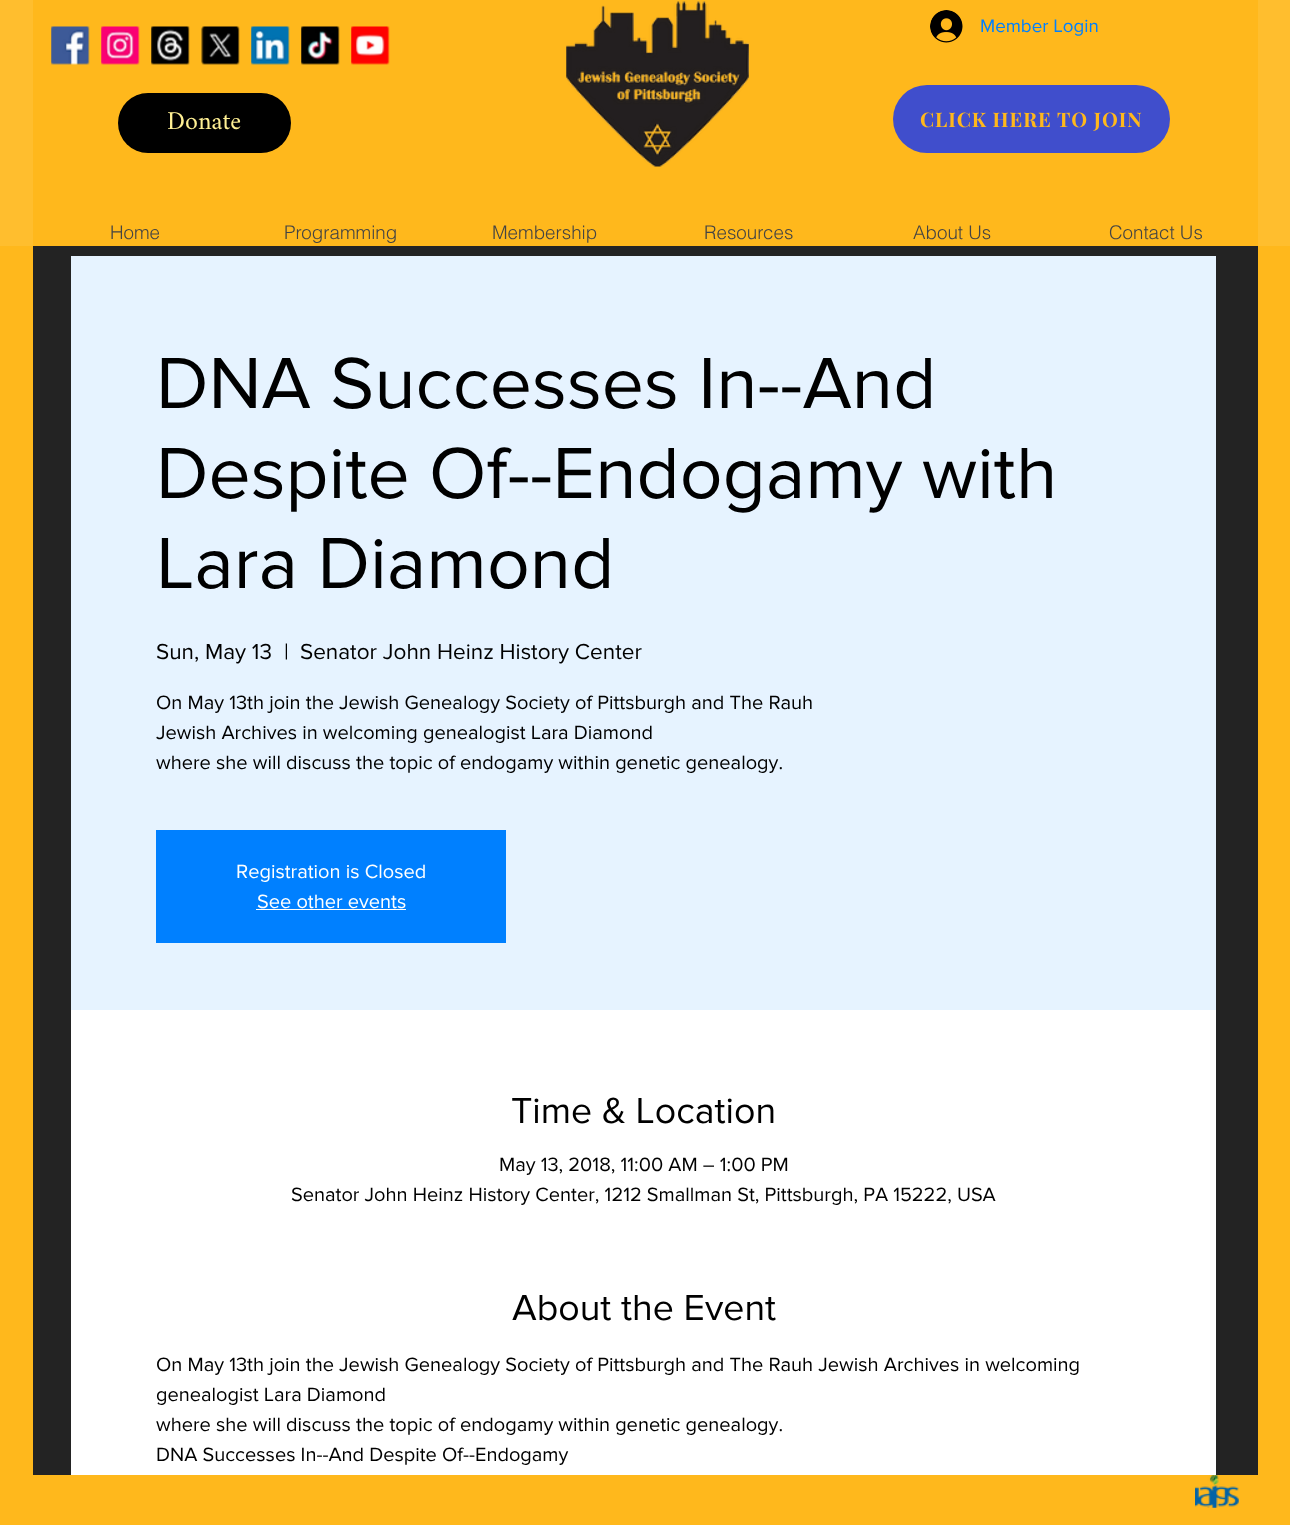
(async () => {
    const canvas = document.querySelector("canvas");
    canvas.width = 1290;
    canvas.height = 1525;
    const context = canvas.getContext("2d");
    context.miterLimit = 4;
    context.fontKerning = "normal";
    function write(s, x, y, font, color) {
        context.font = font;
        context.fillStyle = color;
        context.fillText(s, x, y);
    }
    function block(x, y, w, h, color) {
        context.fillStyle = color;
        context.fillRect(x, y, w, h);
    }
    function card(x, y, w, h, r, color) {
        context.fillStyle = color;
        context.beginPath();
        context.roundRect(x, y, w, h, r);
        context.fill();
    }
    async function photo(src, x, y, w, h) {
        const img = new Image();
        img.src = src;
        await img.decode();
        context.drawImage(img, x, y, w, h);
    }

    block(0, 0, 1290, 1525, "rgb(255, 184, 28)");
    block(0, 0, 1290, 246, "rgb(255, 190, 46)");
    block(33, 0, 1225, 246, "rgb(255, 184, 28)");
    await photo("media/1.png", 51, 26, 39, 39);
    await photo("media/2.png", 101, 26, 39, 39);
    await photo("media/3.png", 151, 26, 39, 39);
    await photo("media/4.png", 201, 26, 39, 39);
    await photo("media/5.png", 251, 26, 39, 39);
    await photo("media/6.png", 301, 26, 39, 39);
    await photo("media/7.png", 351, 26, 39, 39);
    await photo("media/8.png", 566, 1, 183, 166);
    await photo("media/9.png", 930, 10, 33, 33);
    write("Member Login", 980, 32, "18.75px 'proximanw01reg'", "rgb(0, 128, 255)");
    card(118, 93, 173, 60, 30, "rgb(0, 0, 0)");
    write("Donate", 167, 129, "26px Amiri", "rgb(255, 240, 148)");
    card(893, 85, 277, 68, 34, "rgb(64, 78, 204)");
    context.letterSpacing = "1px";
    write("CLICK HERE TO JOIN", 920, 127, "bold 20px Playfair Display", "rgb(255, 184, 28)");
    context.letterSpacing = "0px";
    write("Home", 110, 239, "300 18.75px helvetica", "rgb(68, 68, 68)");
    write("Programming", 284, 239, "300 18.75px helvetica", "rgb(68, 68, 68)");
    write("Membership", 492, 239, "300 18.75px helvetica", "rgb(68, 68, 68)");
    write("Resources", 704, 239, "300 18.75px helvetica", "rgb(68, 68, 68)");
    write("About Us", 913, 239, "300 18.75px helvetica", "rgb(68, 68, 68)");
    write("Contact Us", 1109, 239, "300 18.75px helvetica", "rgb(68, 68, 68)");
    block(33, 246, 1225, 1229, "rgb(35, 35, 35)");
    block(71, 256, 1145, 754, "rgb(230, 243, 255)");
    write("DNA Successes In--And", 156, 408, "75px 'proximanw01reg'", "rgb(0, 0, 0)");
    write("Despite Of--Endogamy with", 156, 498, "75px 'proximanw01reg'", "rgb(0, 0, 0)");
    write("Lara Diamond", 156, 588, "75px 'proximanw01reg'", "rgb(0, 0, 0)");
    write("Sun, May 13", 156, 659, "22.5px 'proximanw01reg'", "rgb(0, 0, 0)");
    write("|", 284, 659, "22.5px 'proximanw01reg'", "rgb(0, 0, 0)");
    write("Senator John Heinz History Center", 300, 659, "22.5px 'proximanw01reg'", "rgb(0, 0, 0)");
    write("On May 13th join the Jewish Genealogy Society of Pittsburgh and The Rauh", 156, 709, "20px 'proximanw01reg'", "rgb(0, 0, 0)");
    write("Jewish Archives in welcoming genealogist Lara Diamond", 156, 739, "20px 'proximanw01reg'", "rgb(0, 0, 0)");
    write("where she will discuss the topic of endogamy within genetic genealogy.", 156, 769, "20px 'proximanw01reg'", "rgb(0, 0, 0)");
    block(156, 830, 350, 113, "rgb(0, 128, 255)");
    write("Registration is Closed", 236, 878, "20px 'proximanw01reg'", "rgb(255, 255, 255)");
    write("See other events", 257, 908, "20px 'proximanw01reg'", "rgb(255, 255, 255)");
    block(256, 909, 150, 1, "rgb(255, 255, 255)");
    block(71, 1010, 1145, 465, "rgb(255, 255, 255)");
    write("Time & Location", 511, 1123, "37.5px 'proximanw01reg'", "rgb(0, 0, 0)");
    write("May 13, 2018, 11:00 AM – 1:00 PM", 499, 1171, "20px 'proximanw01reg'", "rgb(0, 0, 0)");
    write("Senator John Heinz History Center, 1212 Smallman St, Pittsburgh, PA 15222, USA", 291, 1201, "20px 'proximanw01reg'", "rgb(0, 0, 0)");
    write("About the Event", 512, 1320, "37.5px 'proximanw01reg'", "rgb(0, 0, 0)");
    write("On May 13th join the Jewish Genealogy Society of Pittsburgh and The Rauh Jewish Archives in welcoming", 156, 1371, "20px 'proximanw01reg'", "rgb(0, 0, 0)");
    write("genealogist Lara Diamond", 156, 1401, "20px 'proximanw01reg'", "rgb(0, 0, 0)");
    write("where she will discuss the topic of endogamy within genetic genealogy.", 156, 1431, "20px 'proximanw01reg'", "rgb(0, 0, 0)");
    write("DNA Successes In--And Despite Of--Endogamy", 156, 1461, "20px 'proximanw01reg'", "rgb(0, 0, 0)");
    await photo("media/10.png", 1195, 1475, 44, 33);
})();
